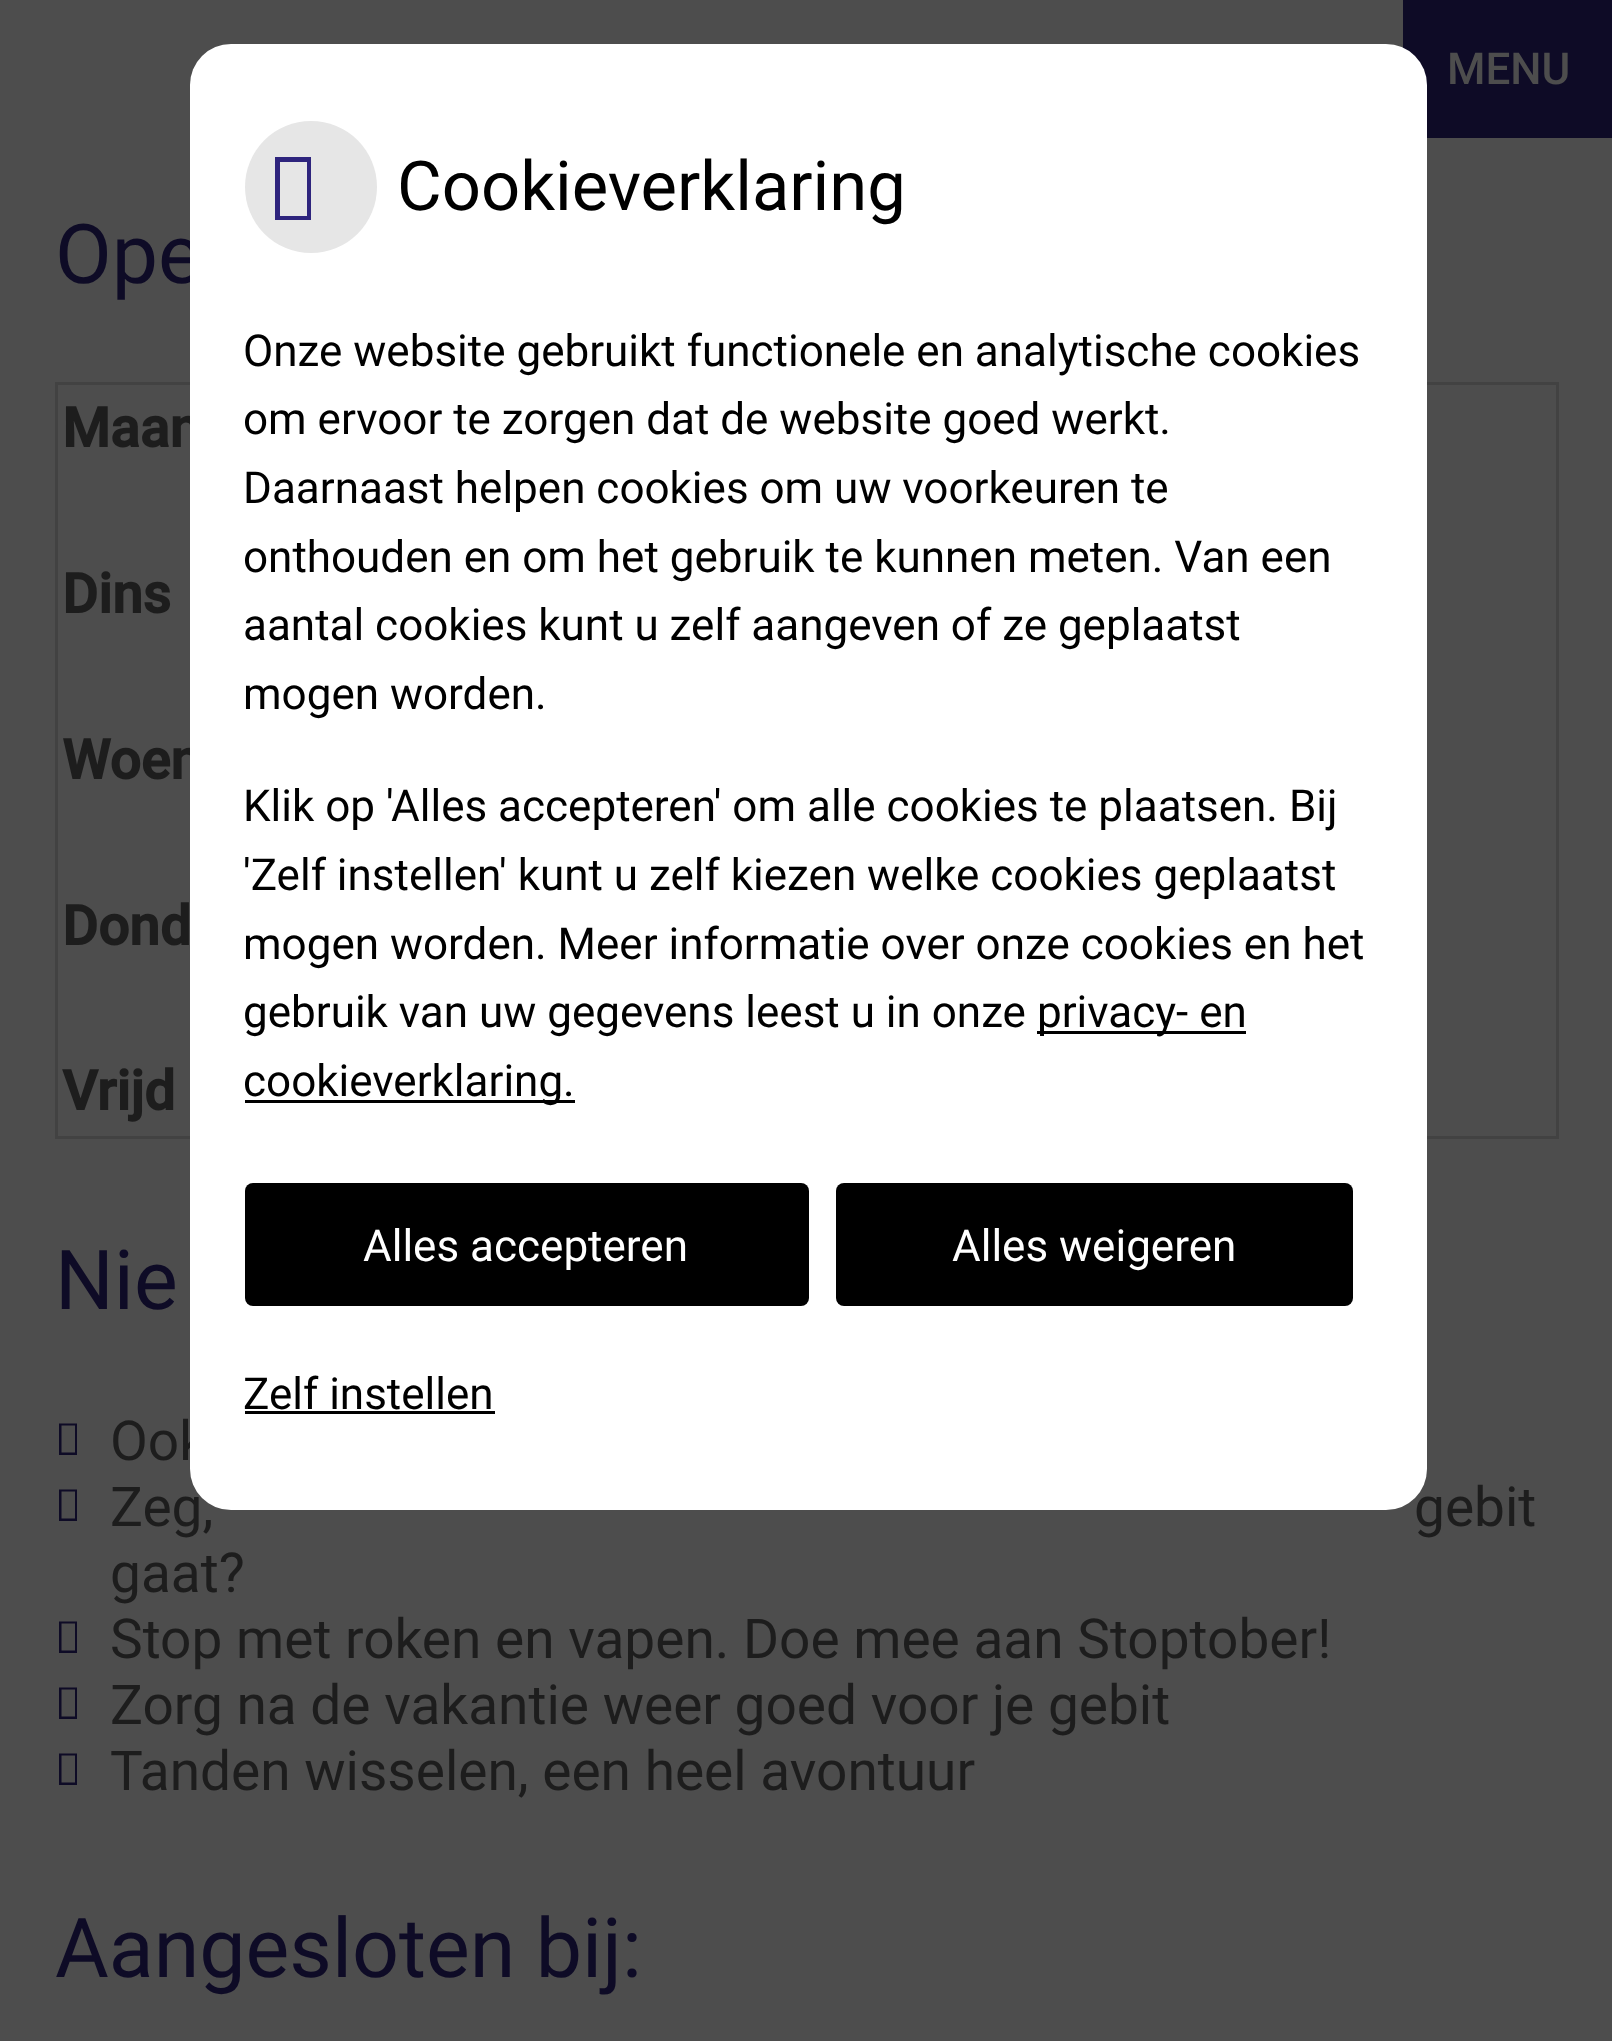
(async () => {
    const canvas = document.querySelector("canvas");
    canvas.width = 1612;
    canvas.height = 2041;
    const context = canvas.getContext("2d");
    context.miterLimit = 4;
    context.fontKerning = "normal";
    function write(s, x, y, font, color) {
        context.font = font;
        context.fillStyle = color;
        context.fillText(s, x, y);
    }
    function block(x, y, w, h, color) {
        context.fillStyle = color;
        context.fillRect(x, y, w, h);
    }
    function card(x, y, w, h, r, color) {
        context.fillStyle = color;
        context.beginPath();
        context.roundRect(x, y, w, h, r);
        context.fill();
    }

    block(0, 0, 1612, 2041, "rgb(77, 77, 77)");
    block(1403, 0, 209, 138, "rgb(14, 11, 38)");
    write("MENU", 1447, 84, "500 44px Roboto", "rgb(77, 77, 77)");
    write("Ope", 55, 283, "82.5px Roboto", "rgb(14, 11, 38)");
    context.strokeStyle = "rgb(66, 66, 66)";
    context.lineWidth = 3;
    context.strokeRect(56.5, 383.5, 1501, 754);
    write("Maan", 62, 447, "bold 55px Roboto", "rgb(29, 29, 29)");
    write("Woen", 62, 779, "bold 55px Roboto", "rgb(29, 29, 29)");
    write("Ook", 110, 1460, "55px Roboto", "rgb(29, 29, 29)");
    write("Zeg,", 110, 1526, "55px Roboto", "rgb(29, 29, 29)");
    write("gebit", 1414, 1526, "55px Roboto", "rgb(29, 29, 29)");
    card(190, 44, 1237, 1466, 41, "rgb(255, 255, 255)");
    context.fillStyle = "rgb(230, 230, 230)";
    context.beginPath();
    context.arc(311, 187, 66, 0, Math.PI * 2);
    context.fill();
    context.fillStyle = "rgb(46, 36, 125)";
    context.beginPath();
    context.moveTo(275, 220);
    context.lineTo(275, 157);
    context.lineTo(311, 157);
    context.lineTo(311, 220);
    context.closePath();
    context.moveTo(280, 216);
    context.lineTo(307, 216);
    context.lineTo(307, 162);
    context.lineTo(280, 162);
    context.closePath();
    context.fill();
    write("Cookieverklaring", 397, 210, "68.75px Roboto", "rgb(0, 0, 0)");
    write("Onze website gebruikt functionele en analytische cookies", 243, 366, "44px Roboto", "rgb(0, 0, 0)");
    write("om ervoor te zorgen dat de website goed werkt.", 243, 434, "44px Roboto", "rgb(0, 0, 0)");
    write("Daarnaast helpen cookies om uw voorkeuren te", 243, 503, "44px Roboto", "rgb(0, 0, 0)");
    write("onthouden en om het gebruik te kunnen meten. Van een", 243, 572, "44px Roboto", "rgb(0, 0, 0)");
    write("aantal cookies kunt u zelf aangeven of ze geplaatst", 243, 640, "44px Roboto", "rgb(0, 0, 0)");
    write("mogen worden.", 243, 709, "44px Roboto", "rgb(0, 0, 0)");
    write("Klik op 'Alles accepteren' om alle cookies te plaatsen. Bij", 243, 821, "44px Roboto", "rgb(0, 0, 0)");
    write("'Zelf instellen' kunt u zelf kiezen welke cookies geplaatst", 243, 890, "44px Roboto", "rgb(0, 0, 0)");
    write("mogen worden. Meer informatie over onze cookies en het", 243, 959, "44px Roboto", "rgb(0, 0, 0)");
    write("gebruik van uw gegevens leest u in onze", 243, 1027, "44px Roboto", "rgb(0, 0, 0)");
    block(1037, 1031, 209, 3, "rgb(0, 0, 0)");
    write("privacy- en", 1037, 1027, "44px Roboto", "rgb(0, 0, 0)");
    block(245, 1100, 330, 3, "rgb(0, 0, 0)");
    write("cookieverklaring.", 243, 1096, "44px Roboto", "rgb(0, 0, 0)");
    card(245, 1183, 564, 123, 8, "rgb(0, 0, 0)");
    write("Alles accepteren", 363, 1261, "44px Roboto", "rgb(255, 255, 255)");
    card(836, 1183, 517, 123, 8, "rgb(0, 0, 0)");
    write("Alles weigeren", 952, 1261, "44px Roboto", "rgb(255, 255, 255)");
    write("Zelf instellen", 243, 1409, "44px Roboto", "rgb(0, 0, 0)");
    block(245, 1411, 250, 3, "rgb(0, 0, 0)");
    write("Dins", 62, 613, "bold 55px Roboto", "rgb(29, 29, 29)");
    write("Dond", 62, 945, "bold 55px Roboto", "rgb(29, 29, 29)");
    write("Vrijd", 62, 1110, "bold 55px Roboto", "rgb(29, 29, 29)");
    write("Nie", 55, 1309, "82.5px Roboto", "rgb(14, 11, 38)");
    context.beginPath();
    context.moveTo(59, 1455);
    context.lineTo(59, 1423.5);
    context.lineTo(77, 1423.5);
    context.lineTo(77, 1455);
    context.closePath();
    context.moveTo(61.5, 1452.5);
    context.lineTo(75, 1452.5);
    context.lineTo(75, 1425.5);
    context.lineTo(61.5, 1425.5);
    context.closePath();
    context.fill();
    context.beginPath();
    context.moveTo(59, 1521);
    context.lineTo(59, 1489.5);
    context.lineTo(77, 1489.5);
    context.lineTo(77, 1521);
    context.closePath();
    context.moveTo(61.5, 1518.5);
    context.lineTo(75, 1518.5);
    context.lineTo(75, 1491.5);
    context.lineTo(61.5, 1491.5);
    context.closePath();
    context.fill();
    write("gaat?", 110, 1592, "55px Roboto", "rgb(29, 29, 29)");
    context.fillStyle = "rgb(14, 11, 38)";
    context.beginPath();
    context.moveTo(59, 1653);
    context.lineTo(59, 1621.5);
    context.lineTo(77, 1621.5);
    context.lineTo(77, 1653);
    context.closePath();
    context.moveTo(61.5, 1650.5);
    context.lineTo(75, 1650.5);
    context.lineTo(75, 1623.5);
    context.lineTo(61.5, 1623.5);
    context.closePath();
    context.fill();
    write("Stop met roken en vapen. Doe mee aan Stoptober!", 110, 1658, "55px Roboto", "rgb(29, 29, 29)");
    context.fillStyle = "rgb(14, 11, 38)";
    context.beginPath();
    context.moveTo(59, 1719);
    context.lineTo(59, 1687.5);
    context.lineTo(77, 1687.5);
    context.lineTo(77, 1719);
    context.closePath();
    context.moveTo(61.5, 1716.5);
    context.lineTo(75, 1716.5);
    context.lineTo(75, 1689.5);
    context.lineTo(61.5, 1689.5);
    context.closePath();
    context.fill();
    write("Zorg na de vakantie weer goed voor je gebit", 110, 1724, "55px Roboto", "rgb(29, 29, 29)");
    context.fillStyle = "rgb(14, 11, 38)";
    context.beginPath();
    context.moveTo(59, 1785);
    context.lineTo(59, 1753.5);
    context.lineTo(77, 1753.5);
    context.lineTo(77, 1785);
    context.closePath();
    context.moveTo(61.5, 1782.5);
    context.lineTo(75, 1782.5);
    context.lineTo(75, 1755.5);
    context.lineTo(61.5, 1755.5);
    context.closePath();
    context.fill();
    write("Tanden wisselen, een heel avontuur", 110, 1790, "55px Roboto", "rgb(29, 29, 29)");
    write("Aangesloten bij:", 55, 1977, "82.5px Roboto", "rgb(14, 11, 38)");
})();
